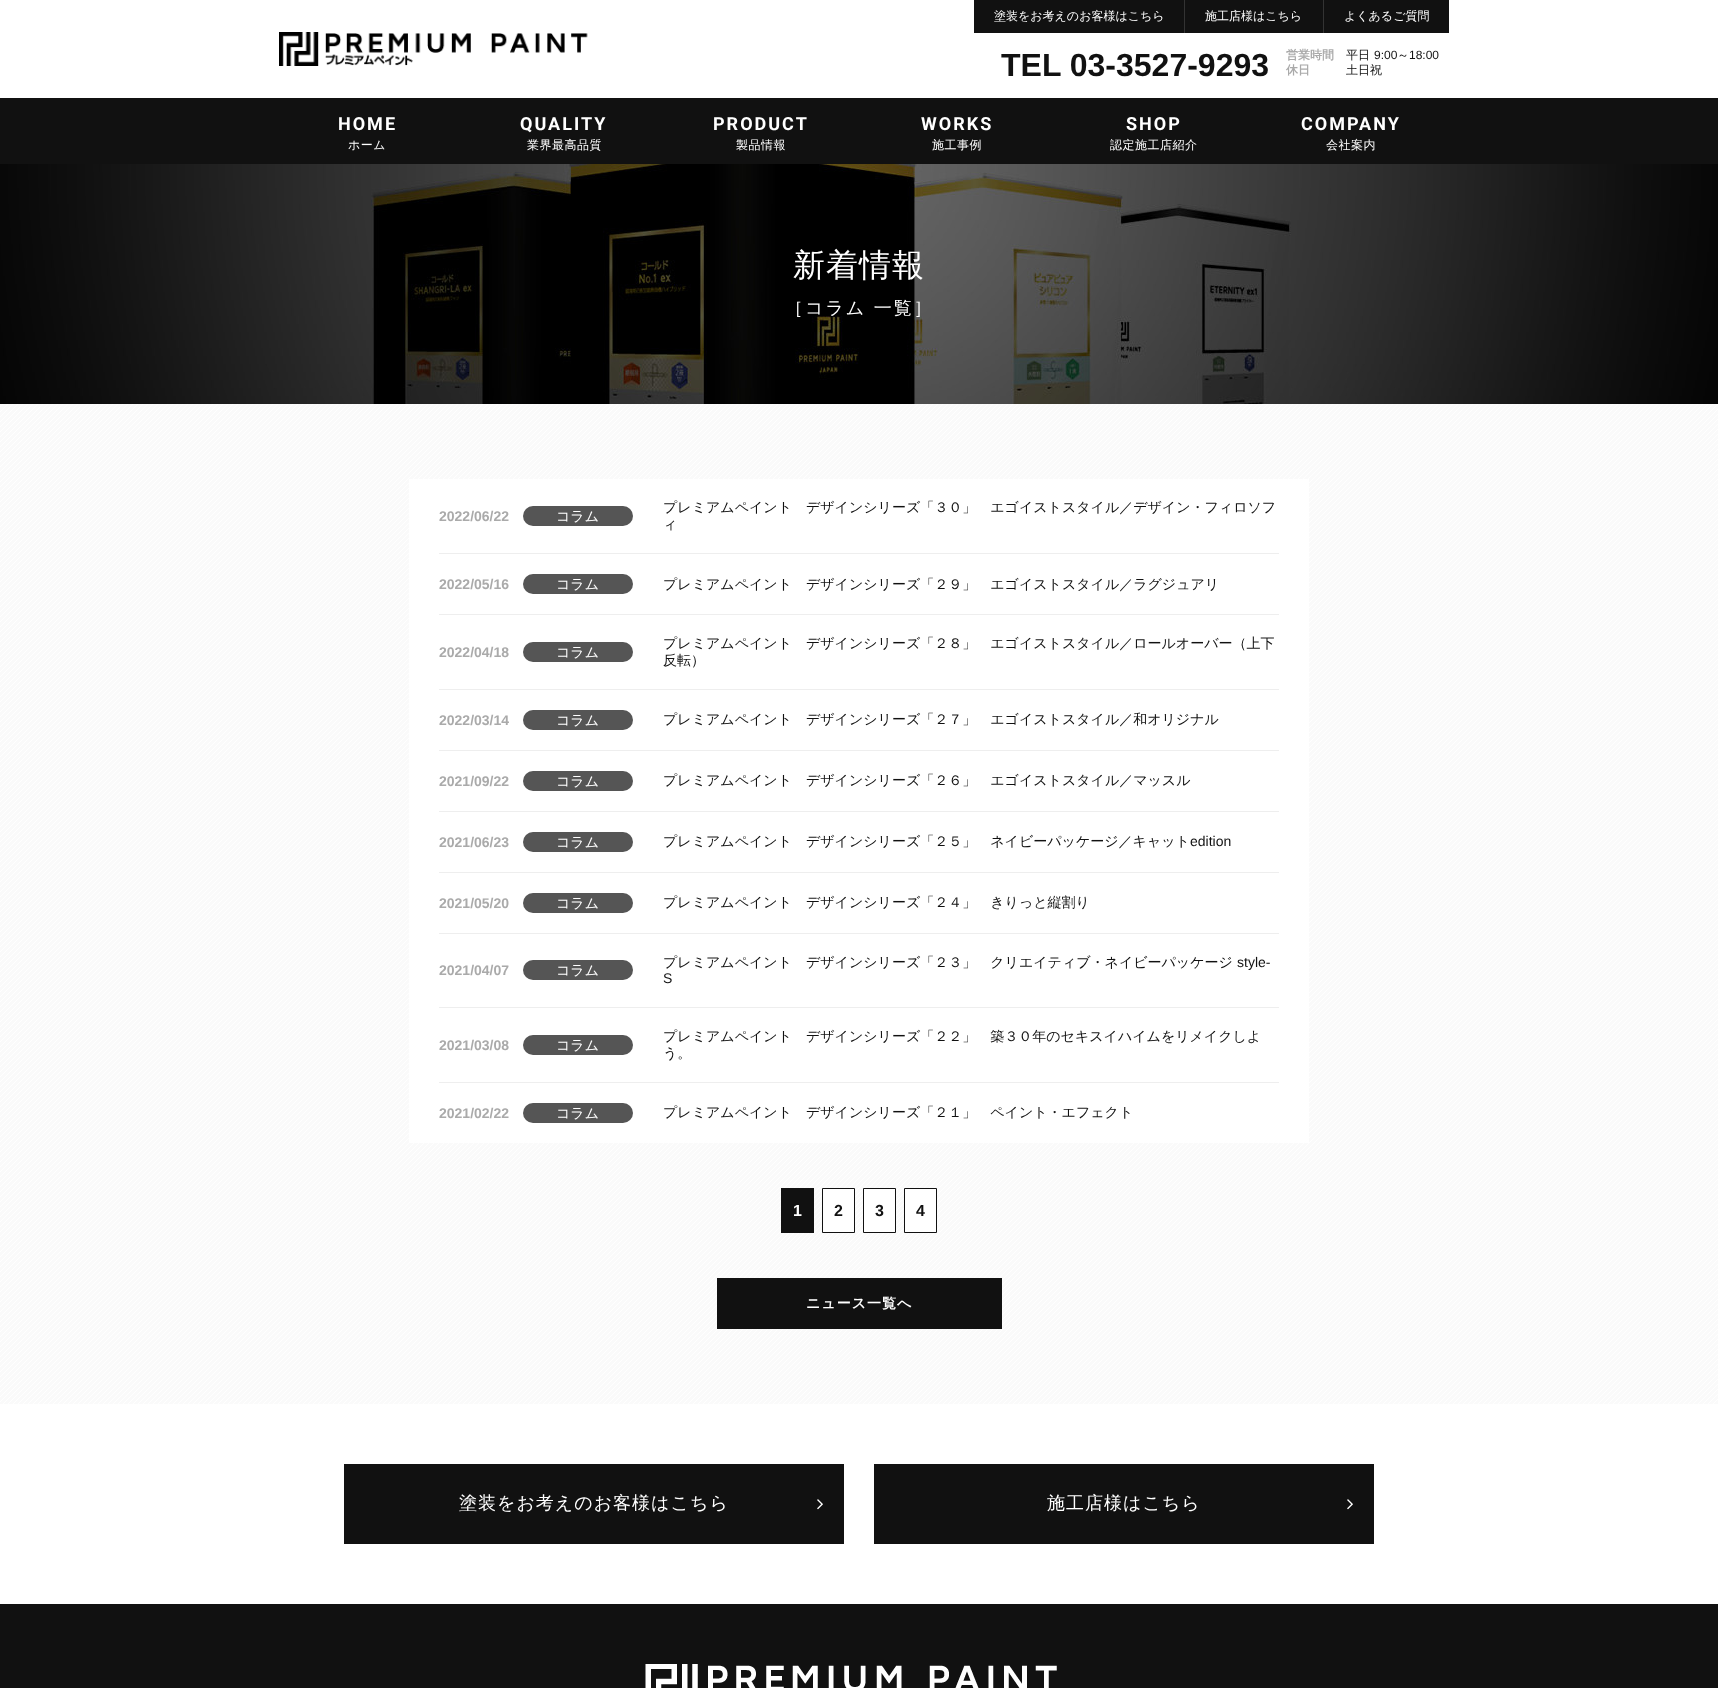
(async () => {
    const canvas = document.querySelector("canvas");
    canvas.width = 1718;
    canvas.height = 1688;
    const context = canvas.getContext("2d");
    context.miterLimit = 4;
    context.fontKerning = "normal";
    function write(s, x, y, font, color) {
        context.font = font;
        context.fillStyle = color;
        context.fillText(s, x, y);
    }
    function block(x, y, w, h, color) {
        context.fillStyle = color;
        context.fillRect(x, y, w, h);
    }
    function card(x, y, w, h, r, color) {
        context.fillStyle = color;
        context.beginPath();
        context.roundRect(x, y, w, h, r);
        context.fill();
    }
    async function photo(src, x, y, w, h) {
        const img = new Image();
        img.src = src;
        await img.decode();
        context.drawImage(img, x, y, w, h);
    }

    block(0, 0, 1718, 1688, "rgb(255, 255, 255)");
    await photo("media/1.png", 279, 32, 309, 34);
    block(974, 0, 210, 33, "rgb(17, 17, 17)");
    write("塗装をお考えのお客様はこちら", 994, 20, "500 12px WenQuanYi Zen Hei", "rgb(255, 255, 255)");
    block(1184, 0, 1, 33, "rgb(51, 51, 51)");
    block(1185, 0, 138, 33, "rgb(17, 17, 17)");
    write("施工店様はこちら", 1205, 20, "500 12px WenQuanYi Zen Hei", "rgb(255, 255, 255)");
    block(1323, 0, 1, 33, "rgb(51, 51, 51)");
    block(1324, 0, 125, 33, "rgb(17, 17, 17)");
    write("よくあるご質問", 1344, 20, "500 12px WenQuanYi Zen Hei", "rgb(255, 255, 255)");
    write("TEL 03-3527-9293", 1001, 76, "bold 32px Liberation Sans", "rgb(17, 17, 17)");
    write("営業時間", 1286, 59, "bold 12px WenQuanYi Zen Hei", "rgb(170, 170, 170)");
    write("平日", 1346, 59, "500 12px WenQuanYi Zen Hei", "rgb(17, 17, 17)");
    write("9:00", 1374, 59, "12px Liberation Sans", "rgb(17, 17, 17)");
    write("～", 1397, 59, "500 12px WenQuanYi Zen Hei", "rgb(17, 17, 17)");
    write("18:00", 1409, 59, "12px Liberation Sans", "rgb(17, 17, 17)");
    write("休日", 1286, 74, "bold 12px WenQuanYi Zen Hei", "rgb(170, 170, 170)");
    write("土日祝", 1346, 74, "500 12px WenQuanYi Zen Hei", "rgb(17, 17, 17)");
    block(0, 98, 1718, 66, "rgb(17, 17, 17)");
    context.letterSpacing = "2px";
    write("HOME", 338, 130, "bold 18px Roboto", "rgb(255, 255, 255)");
    context.letterSpacing = "0.5px";
    write("ホーム", 348, 149, "500 12px WenQuanYi Zen Hei", "rgb(255, 255, 255)");
    context.letterSpacing = "2px";
    write("QUALITY", 520, 130, "bold 18px Roboto", "rgb(255, 255, 255)");
    context.letterSpacing = "0.5px";
    write("業界最高品質", 527, 149, "500 12px WenQuanYi Zen Hei", "rgb(255, 255, 255)");
    context.letterSpacing = "2px";
    write("PRODUCT", 713, 130, "bold 18px Roboto", "rgb(255, 255, 255)");
    context.letterSpacing = "0.5px";
    write("製品情報", 736, 149, "500 12px WenQuanYi Zen Hei", "rgb(255, 255, 255)");
    context.letterSpacing = "2px";
    write("WORKS", 921, 130, "bold 18px Roboto", "rgb(255, 255, 255)");
    context.letterSpacing = "0.5px";
    write("施工事例", 932, 149, "500 12px WenQuanYi Zen Hei", "rgb(255, 255, 255)");
    context.letterSpacing = "2px";
    write("SHOP", 1126, 130, "bold 18px Roboto", "rgb(255, 255, 255)");
    context.letterSpacing = "0.5px";
    write("認定施工店紹介", 1110, 149, "500 12px WenQuanYi Zen Hei", "rgb(255, 255, 255)");
    context.letterSpacing = "2px";
    write("COMPANY", 1301, 130, "bold 18px Roboto", "rgb(255, 255, 255)");
    context.letterSpacing = "0.5px";
    write("会社案内", 1326, 149, "500 12px WenQuanYi Zen Hei", "rgb(255, 255, 255)");
    await photo("media/2.png", 0, 164, 1718, 240);
    context.letterSpacing = "1px";
    write("新着情報", 793, 276, "500 32px WenQuanYi Zen Hei", "rgb(255, 255, 255)");
    context.letterSpacing = "2px";
    write("［コラム 一覧］", 785, 314, "500 18px WenQuanYi Zen Hei", "rgb(255, 255, 255)");
    await photo("media/3.png", 0, 404, 1718, 1000);
    block(409, 479, 900, 664, "rgb(255, 255, 255)");
    context.letterSpacing = "0px";
    write("2022/06/22", 439, 521, "bold 14px Liberation Sans", "rgb(170, 170, 170)");
    card(523, 506, 110, 20, 10, "rgb(85, 85, 85)");
    write("コラム", 556, 521, "500 14px WenQuanYi Zen Hei", "rgb(255, 255, 255)");
    write("プレミアムペイント　デザインシリーズ「３０」　エゴイストスタイル／デザイン・フィロソフ", 663, 512, "500 14px WenQuanYi Zen Hei", "rgb(17, 17, 17)");
    write("ィ", 663, 529, "500 14px WenQuanYi Zen Hei", "rgb(17, 17, 17)");
    block(439, 553, 840, 1, "rgb(238, 238, 238)");
    write("2022/05/16", 439, 589, "bold 14px Liberation Sans", "rgb(170, 170, 170)");
    card(523, 574, 110, 20, 10, "rgb(85, 85, 85)");
    write("コラム", 556, 589, "500 14px WenQuanYi Zen Hei", "rgb(255, 255, 255)");
    write("プレミアムペイント　デザインシリーズ「２９」　エゴイストスタイル／ラグジュアリ", 663, 589, "500 14px WenQuanYi Zen Hei", "rgb(17, 17, 17)");
    block(439, 614, 840, 1, "rgb(238, 238, 238)");
    write("2022/04/18", 439, 657, "bold 14px Liberation Sans", "rgb(170, 170, 170)");
    card(523, 642, 110, 20, 10, "rgb(85, 85, 85)");
    write("コラム", 556, 657, "500 14px WenQuanYi Zen Hei", "rgb(255, 255, 255)");
    write("プレミアムペイント　デザインシリーズ「２８」　エゴイストスタイル／ロールオーバー（上下", 663, 648, "500 14px WenQuanYi Zen Hei", "rgb(17, 17, 17)");
    write("反転）", 663, 665, "500 14px WenQuanYi Zen Hei", "rgb(17, 17, 17)");
    block(439, 689, 840, 1, "rgb(238, 238, 238)");
    write("2022/03/14", 439, 725, "bold 14px Liberation Sans", "rgb(170, 170, 170)");
    card(523, 710, 110, 20, 10, "rgb(85, 85, 85)");
    write("コラム", 556, 725, "500 14px WenQuanYi Zen Hei", "rgb(255, 255, 255)");
    write("プレミアムペイント　デザインシリーズ「２７」　エゴイストスタイル／和オリジナル", 663, 724, "500 14px WenQuanYi Zen Hei", "rgb(17, 17, 17)");
    block(439, 750, 840, 1, "rgb(238, 238, 238)");
    write("2021/09/22", 439, 786, "bold 14px Liberation Sans", "rgb(170, 170, 170)");
    card(523, 771, 110, 20, 10, "rgb(85, 85, 85)");
    write("コラム", 556, 786, "500 14px WenQuanYi Zen Hei", "rgb(255, 255, 255)");
    write("プレミアムペイント　デザインシリーズ「２６」　エゴイストスタイル／マッスル", 663, 785, "500 14px WenQuanYi Zen Hei", "rgb(17, 17, 17)");
    block(439, 811, 840, 1, "rgb(238, 238, 238)");
    write("2021/06/23", 439, 847, "bold 14px Liberation Sans", "rgb(170, 170, 170)");
    card(523, 832, 110, 20, 10, "rgb(85, 85, 85)");
    write("コラム", 556, 847, "500 14px WenQuanYi Zen Hei", "rgb(255, 255, 255)");
    write("プレミアムペイント　デザインシリーズ「２５」　ネイビーパッケージ／キャット", 663, 846, "500 14px WenQuanYi Zen Hei", "rgb(17, 17, 17)");
    write("edition", 1190, 846, "14px Liberation Sans", "rgb(17, 17, 17)");
    block(439, 872, 840, 1, "rgb(238, 238, 238)");
    write("2021/05/20", 439, 908, "bold 14px Liberation Sans", "rgb(170, 170, 170)");
    card(523, 893, 110, 20, 10, "rgb(85, 85, 85)");
    write("コラム", 556, 908, "500 14px WenQuanYi Zen Hei", "rgb(255, 255, 255)");
    write("プレミアムペイント　デザインシリーズ「２４」　きりっと縦割り", 663, 907, "500 14px WenQuanYi Zen Hei", "rgb(17, 17, 17)");
    block(439, 933, 840, 1, "rgb(238, 238, 238)");
    write("2021/04/07", 439, 975, "bold 14px Liberation Sans", "rgb(170, 170, 170)");
    card(523, 960, 110, 20, 10, "rgb(85, 85, 85)");
    write("コラム", 556, 975, "500 14px WenQuanYi Zen Hei", "rgb(255, 255, 255)");
    write("プレミアムペイント　デザインシリーズ「２３」　クリエイティブ・ネイビーパッケージ", 663, 967, "500 14px WenQuanYi Zen Hei", "rgb(17, 17, 17)");
    write("style-", 1237, 967, "14px Liberation Sans", "rgb(17, 17, 17)");
    write("S", 663, 983, "14px Liberation Sans", "rgb(17, 17, 17)");
    block(439, 1007, 840, 1, "rgb(238, 238, 238)");
    write("2021/03/08", 439, 1050, "bold 14px Liberation Sans", "rgb(170, 170, 170)");
    card(523, 1035, 110, 20, 10, "rgb(85, 85, 85)");
    write("コラム", 556, 1050, "500 14px WenQuanYi Zen Hei", "rgb(255, 255, 255)");
    write("プレミアムペイント　デザインシリーズ「２２」　築３０年のセキスイハイムをリメイクしよ", 663, 1041, "500 14px WenQuanYi Zen Hei", "rgb(17, 17, 17)");
    write("う。", 663, 1058, "500 14px WenQuanYi Zen Hei", "rgb(17, 17, 17)");
    block(439, 1082, 840, 1, "rgb(238, 238, 238)");
    write("2021/02/22", 439, 1118, "bold 14px Liberation Sans", "rgb(170, 170, 170)");
    card(523, 1103, 110, 20, 10, "rgb(85, 85, 85)");
    write("コラム", 556, 1118, "500 14px WenQuanYi Zen Hei", "rgb(255, 255, 255)");
    write("プレミアムペイント　デザインシリーズ「２１」　ペイント・エフェクト", 663, 1117, "500 14px WenQuanYi Zen Hei", "rgb(17, 17, 17)");
    block(781, 1188, 33, 45, "rgb(17, 17, 17)");
    write("1", 793, 1216, "bold 16px Liberation Sans", "rgb(255, 255, 255)");
    context.beginPath();
    context.rect(822.5, 1188.5, 32, 44);
    context.fill();
    context.strokeStyle = "rgb(17, 17, 17)";
    context.stroke();
    write("2", 834, 1216, "bold 16px Liberation Sans", "rgb(17, 17, 17)");
    context.fillStyle = "rgb(255, 255, 255)";
    context.beginPath();
    context.rect(863.5, 1188.5, 32, 44);
    context.fill();
    context.stroke();
    write("3", 875, 1216, "bold 16px Liberation Sans", "rgb(17, 17, 17)");
    context.fillStyle = "rgb(255, 255, 255)";
    context.beginPath();
    context.rect(904.5, 1188.5, 32, 44);
    context.fill();
    context.stroke();
    write("4", 916, 1216, "bold 16px Liberation Sans", "rgb(17, 17, 17)");
    block(717, 1278, 285, 51, "rgb(17, 17, 17)");
    context.letterSpacing = "1px";
    write("ニュース一覧へ", 806, 1308, "bold 14px WenQuanYi Zen Hei", "rgb(255, 255, 255)");
    block(344, 1464, 500, 80, "rgb(17, 17, 17)");
    write("塗装をお考えのお客様はこちら", 459, 1509, "500 18px WenQuanYi Zen Hei", "rgb(255, 255, 255)");
    await photo("media/4.png", 817, 1499, 6, 11);
    block(874, 1464, 500, 80, "rgb(17, 17, 17)");
    write("施工店様はこちら", 1047, 1509, "500 18px WenQuanYi Zen Hei", "rgb(255, 255, 255)");
    await photo("media/4.png", 1347, 1499, 6, 11);
    block(0, 1604, 1718, 84, "rgb(17, 17, 17)");
    await photo("media/5.png", 645, 1664, 412, 24);
})();
